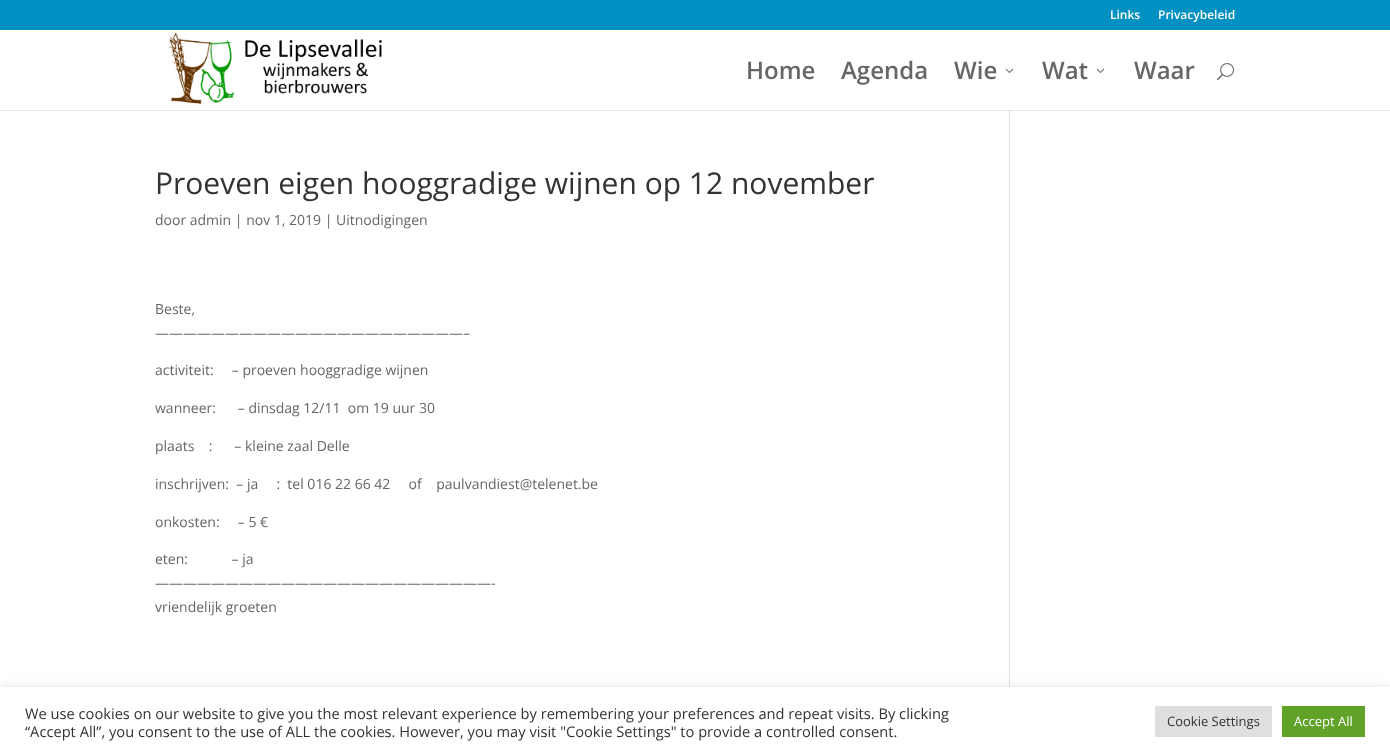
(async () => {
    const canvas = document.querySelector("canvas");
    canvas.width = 1390;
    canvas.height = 756;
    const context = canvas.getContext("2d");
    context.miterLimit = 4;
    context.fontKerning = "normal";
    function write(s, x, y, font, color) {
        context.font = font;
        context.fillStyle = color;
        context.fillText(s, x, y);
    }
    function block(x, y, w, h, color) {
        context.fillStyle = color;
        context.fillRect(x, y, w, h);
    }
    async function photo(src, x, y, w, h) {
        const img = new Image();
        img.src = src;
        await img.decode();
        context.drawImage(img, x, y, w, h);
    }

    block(0, 0, 1390, 756, "rgb(0, 144, 193)");
    write("Links", 1110, 19, "600 12px Open Sans", "rgb(255, 255, 255)");
    write("Privacybeleid", 1158, 19, "600 12px Open Sans", "rgb(255, 255, 255)");
    block(0, 30, 1390, 80, "rgb(255, 255, 255)");
    await photo("media/1.png", 169, 32, 213, 73);
    write("Home", 746, 79, "600 24px Open Sans", "rgb(102, 102, 102)");
    write("Agenda", 841, 79, "600 24px Open Sans", "rgb(102, 102, 102)");
    write("Wie", 954, 79, "600 24px Open Sans", "rgb(102, 102, 102)");
    await photo("media/2.png", 1005, 68, 9, 5);
    write("Wat", 1042, 79, "600 24px Open Sans", "rgb(102, 102, 102)");
    await photo("media/2.png", 1096, 68, 9, 5);
    write("Waar", 1134, 79, "600 24px Open Sans", "rgb(102, 102, 102)");
    await photo("media/3.png", 1217, 63, 17, 18);
    block(0, 111, 1390, 576, "rgb(255, 255, 255)");
    block(0, 110, 1390, 1, "rgb(230, 230, 230)");
    write("Proeven eigen hooggradige wijnen op 12 november", 155, 194, "30px Open Sans", "rgb(51, 51, 51)");
    write("door admin | nov 1, 2019 | Uitnodigingen", 155, 225, "14px Open Sans", "rgb(102, 102, 102)");
    write("Beste,", 155, 314, "14px Open Sans", "rgb(102, 102, 102)");
    write("——————————————————————–", 155, 338, "14px Open Sans", "rgb(102, 102, 102)");
    write("activiteit:     – proeven hooggradige wijnen", 155, 375, "14px Open Sans", "rgb(102, 102, 102)");
    write("wanneer:      – dinsdag 12/11  om 19 uur 30", 155, 413, "14px Open Sans", "rgb(102, 102, 102)");
    write("plaats    :      – kleine zaal Delle", 155, 451, "14px Open Sans", "rgb(102, 102, 102)");
    write("inschrijven:  – ja     :  tel 016 22 66 42     of    paulvandiest@telenet.be", 155, 489, "14px Open Sans", "rgb(102, 102, 102)");
    write("onkosten:     – 5 €", 155, 527, "14px Open Sans", "rgb(102, 102, 102)");
    write("eten:            – ja", 155, 564, "14px Open Sans", "rgb(102, 102, 102)");
    write("————————————————————————-", 155, 588, "14px Open Sans", "rgb(102, 102, 102)");
    write("vriendelijk groeten", 155, 612, "14px Open Sans", "rgb(102, 102, 102)");
    block(1009, 110, 1, 577, "rgb(226, 226, 226)");
    block(1009, 110, 1, 1, "rgb(203, 203, 203)");
    context.fillStyle = "rgba(172, 171, 171, 0.3)";
    context.filter = "blur(5px)";
    context.beginPath();
    context.rect(0, 686, 1390, 69);
    context.fill();
    context.filter = "none";
    block(0, 687, 1390, 69, "rgb(255, 255, 255)");
    write("We use cookies on our website to give you the most relevant experience by remembering your preferences and repeat visits. By clicking", 25, 719, "14.67px Open Sans", "rgb(51, 51, 51)");
    write("“Accept All”, you consent to the use of ALL the cookies. However, you may visit \"Cookie Settings\" to provide a controlled consent.", 25, 737, "14.67px Open Sans", "rgb(51, 51, 51)");
    block(1155, 706, 117, 31, "rgb(222, 223, 224)");
    write("Cookie Settings", 1167, 726, "13px Open Sans", "rgb(51, 51, 51)");
    block(1282, 706, 83, 31, "rgb(97, 162, 41)");
    write("Accept All", 1294, 726, "13px Open Sans", "rgb(255, 255, 255)");
})();
